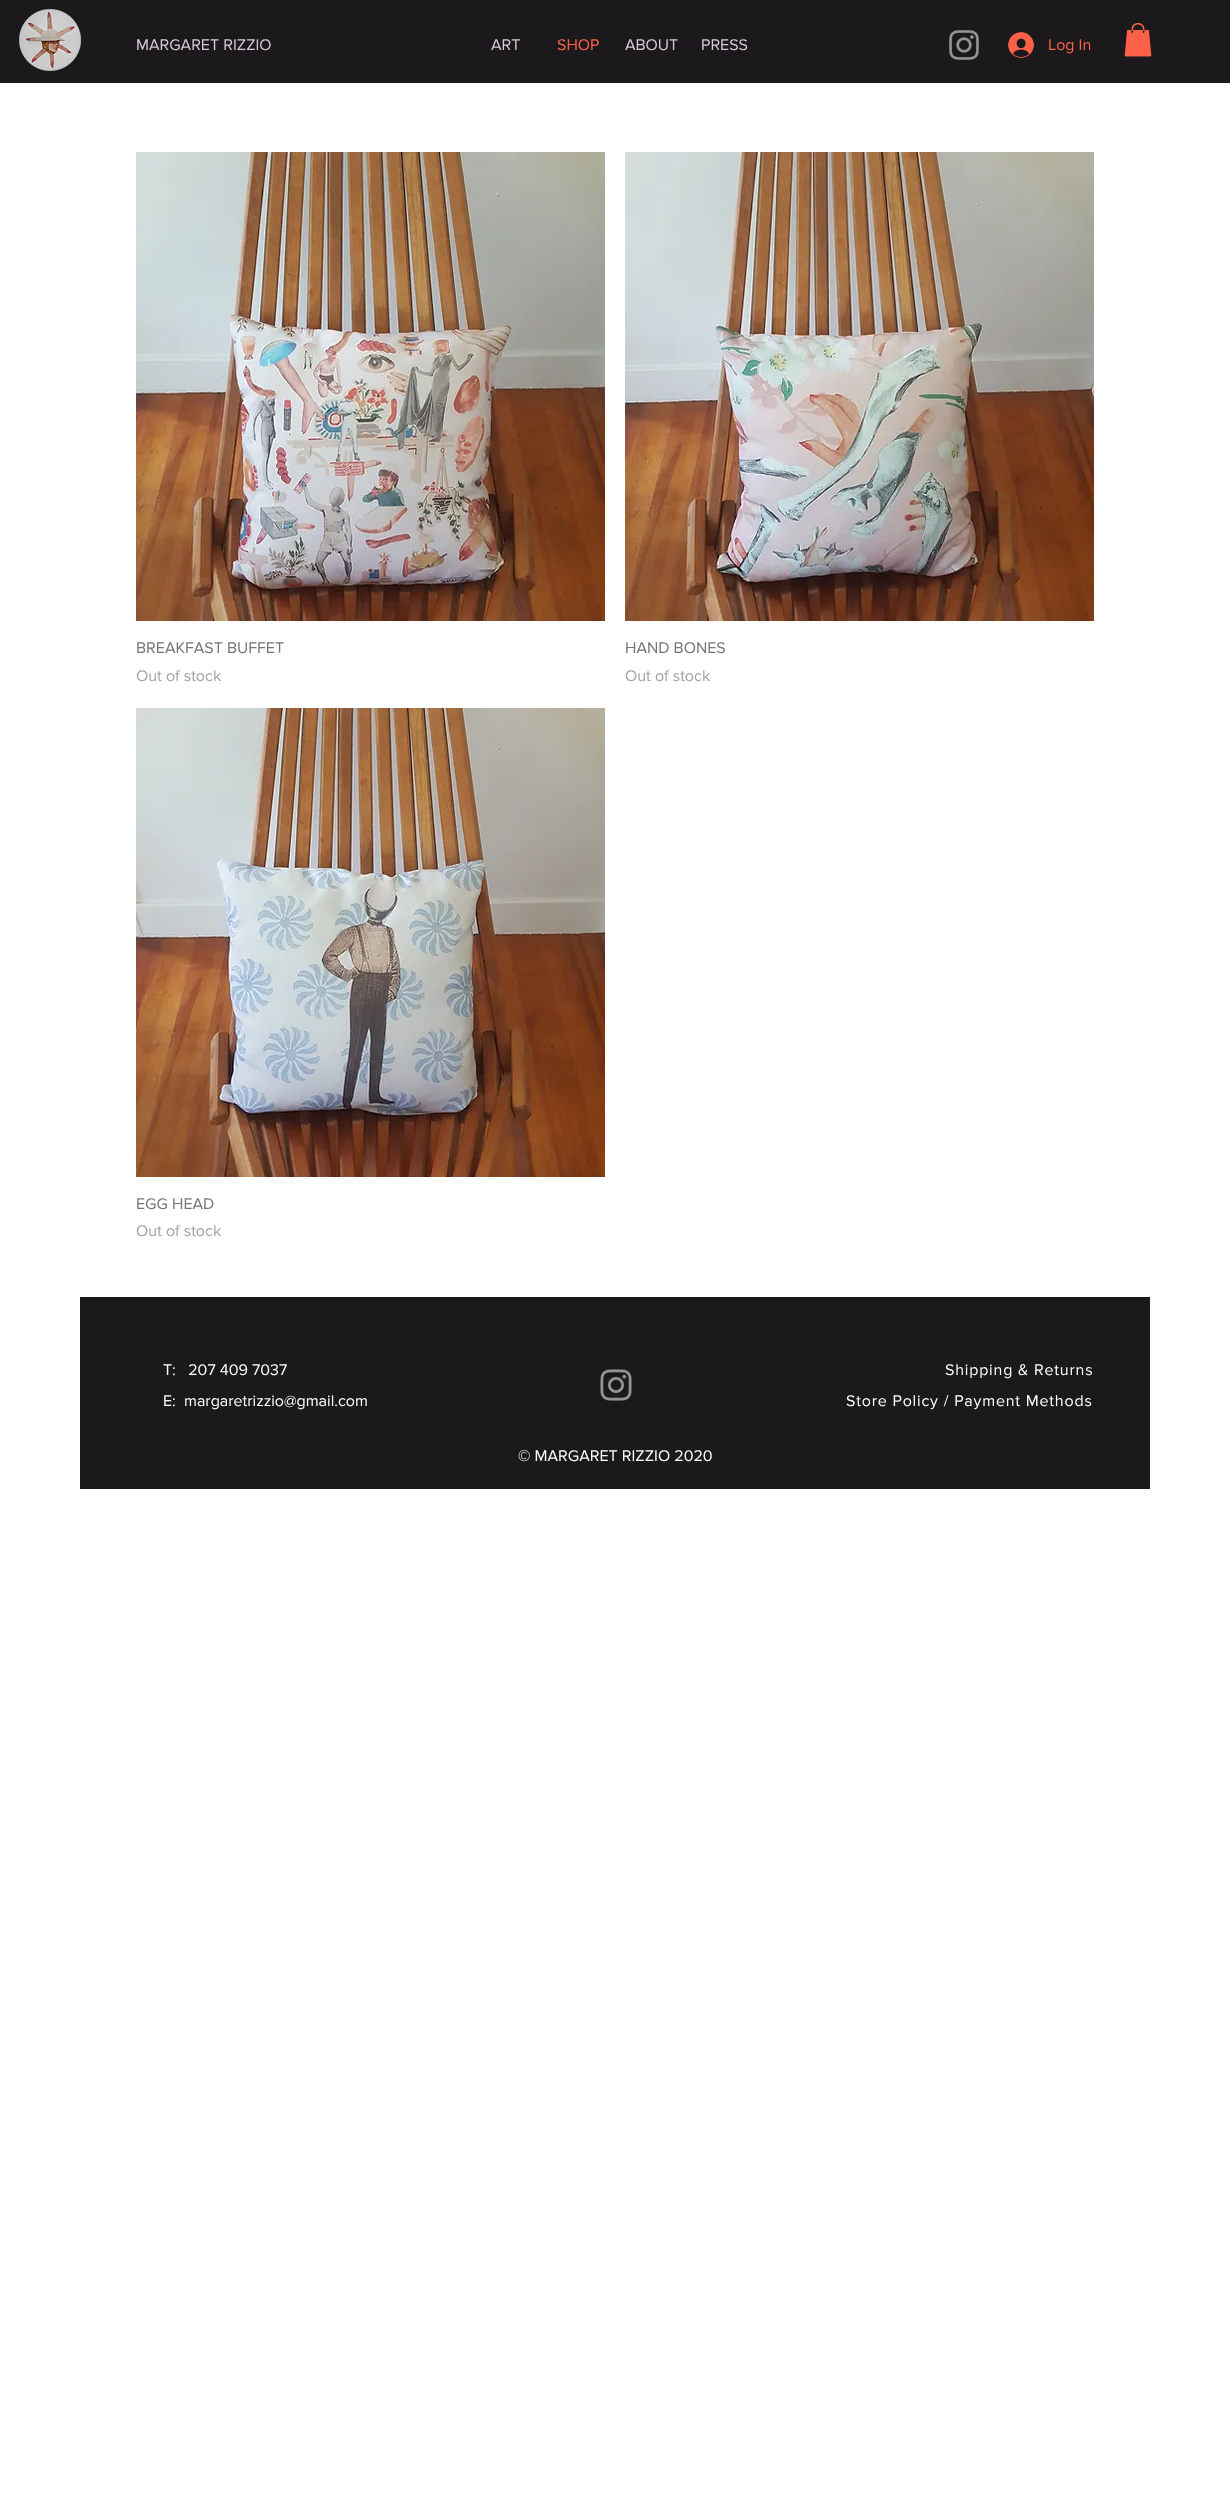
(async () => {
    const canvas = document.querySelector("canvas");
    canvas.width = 1230;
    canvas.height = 2511;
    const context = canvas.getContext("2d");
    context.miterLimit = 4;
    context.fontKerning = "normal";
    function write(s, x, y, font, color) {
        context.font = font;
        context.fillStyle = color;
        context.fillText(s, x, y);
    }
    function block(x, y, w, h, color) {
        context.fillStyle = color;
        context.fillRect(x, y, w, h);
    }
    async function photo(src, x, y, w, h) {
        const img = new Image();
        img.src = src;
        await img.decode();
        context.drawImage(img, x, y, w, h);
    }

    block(0, 0, 1230, 2511, "rgb(255, 255, 255)");
    block(0, 0, 1230, 83, "rgb(28, 25, 28)");
    await photo("media/1.png", 19, 8, 63, 63);
    write("MARGARET RIZZIO", 136, 50, "16px 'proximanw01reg'", "rgb(210, 205, 210)");
    write("ART", 491, 50, "16px 'proximanw01reg'", "rgb(210, 205, 210)");
    write("SHOP", 557, 50, "16px 'proximanw01reg'", "rgb(254, 97, 72)");
    write("ABOUT", 625, 50, "16px 'proximanw01reg'", "rgb(210, 205, 210)");
    write("PRESS", 701, 50, "16px 'proximanw01reg'", "rgb(210, 205, 210)");
    await photo("media/2.png", 949, 30, 30, 30);
    await photo("media/3.png", 1008, 32, 26, 26);
    write("Log In", 1048, 50, "16px 'proximanw01reg'", "rgb(254, 97, 72)");
    await photo("media/4.png", 1124, 23, 28, 34);
    await photo("media/5.png", 136, 152, 469, 469);
    write("BREAKFAST BUFFET", 136, 653, "16px 'proximanw01reg'", "rgb(119, 115, 119)");
    write("Out of stock", 136, 681, "16px 'proximanw01reg'", "rgb(164, 160, 164)");
    await photo("media/6.png", 625, 152, 469, 469);
    write("HAND BONES", 625, 653, "16px 'proximanw01reg'", "rgb(119, 115, 119)");
    write("Out of stock", 625, 681, "16px 'proximanw01reg'", "rgb(164, 160, 164)");
    await photo("media/7.png", 136, 708, 469, 469);
    write("EGG HEAD", 136, 1209, "16px 'proximanw01reg'", "rgb(119, 115, 119)");
    write("Out of stock", 136, 1236, "16px 'proximanw01reg'", "rgb(164, 160, 164)");
    block(80, 1297, 1070, 192, "rgb(28, 25, 28)");
    write("T:   207 409 7037", 163, 1375, "16px 'proximanw01reg'", "rgb(255, 255, 255)");
    write("E:", 163, 1406, "16px 'proximanw01reg'", "rgb(255, 255, 255)");
    write("margaretrizzio@gmail.com", 184, 1406, "16px 'proximanw01reg'", "rgb(255, 255, 255)");
    await photo("media/8.png", 600, 1369, 32, 32);
    context.letterSpacing = "0.8px";
    write("Shipping & Returns", 945, 1375, "16px 'proximanw01reg'", "rgb(255, 255, 255)");
    write("Store Policy / Payment Methods", 846, 1406, "16px 'proximanw01reg'", "rgb(255, 255, 255)");
    context.letterSpacing = "0px";
    write("© MARGARET RIZZIO 2020", 518, 1461, "16px 'proximanw01reg'", "rgb(255, 255, 255)");
})();
